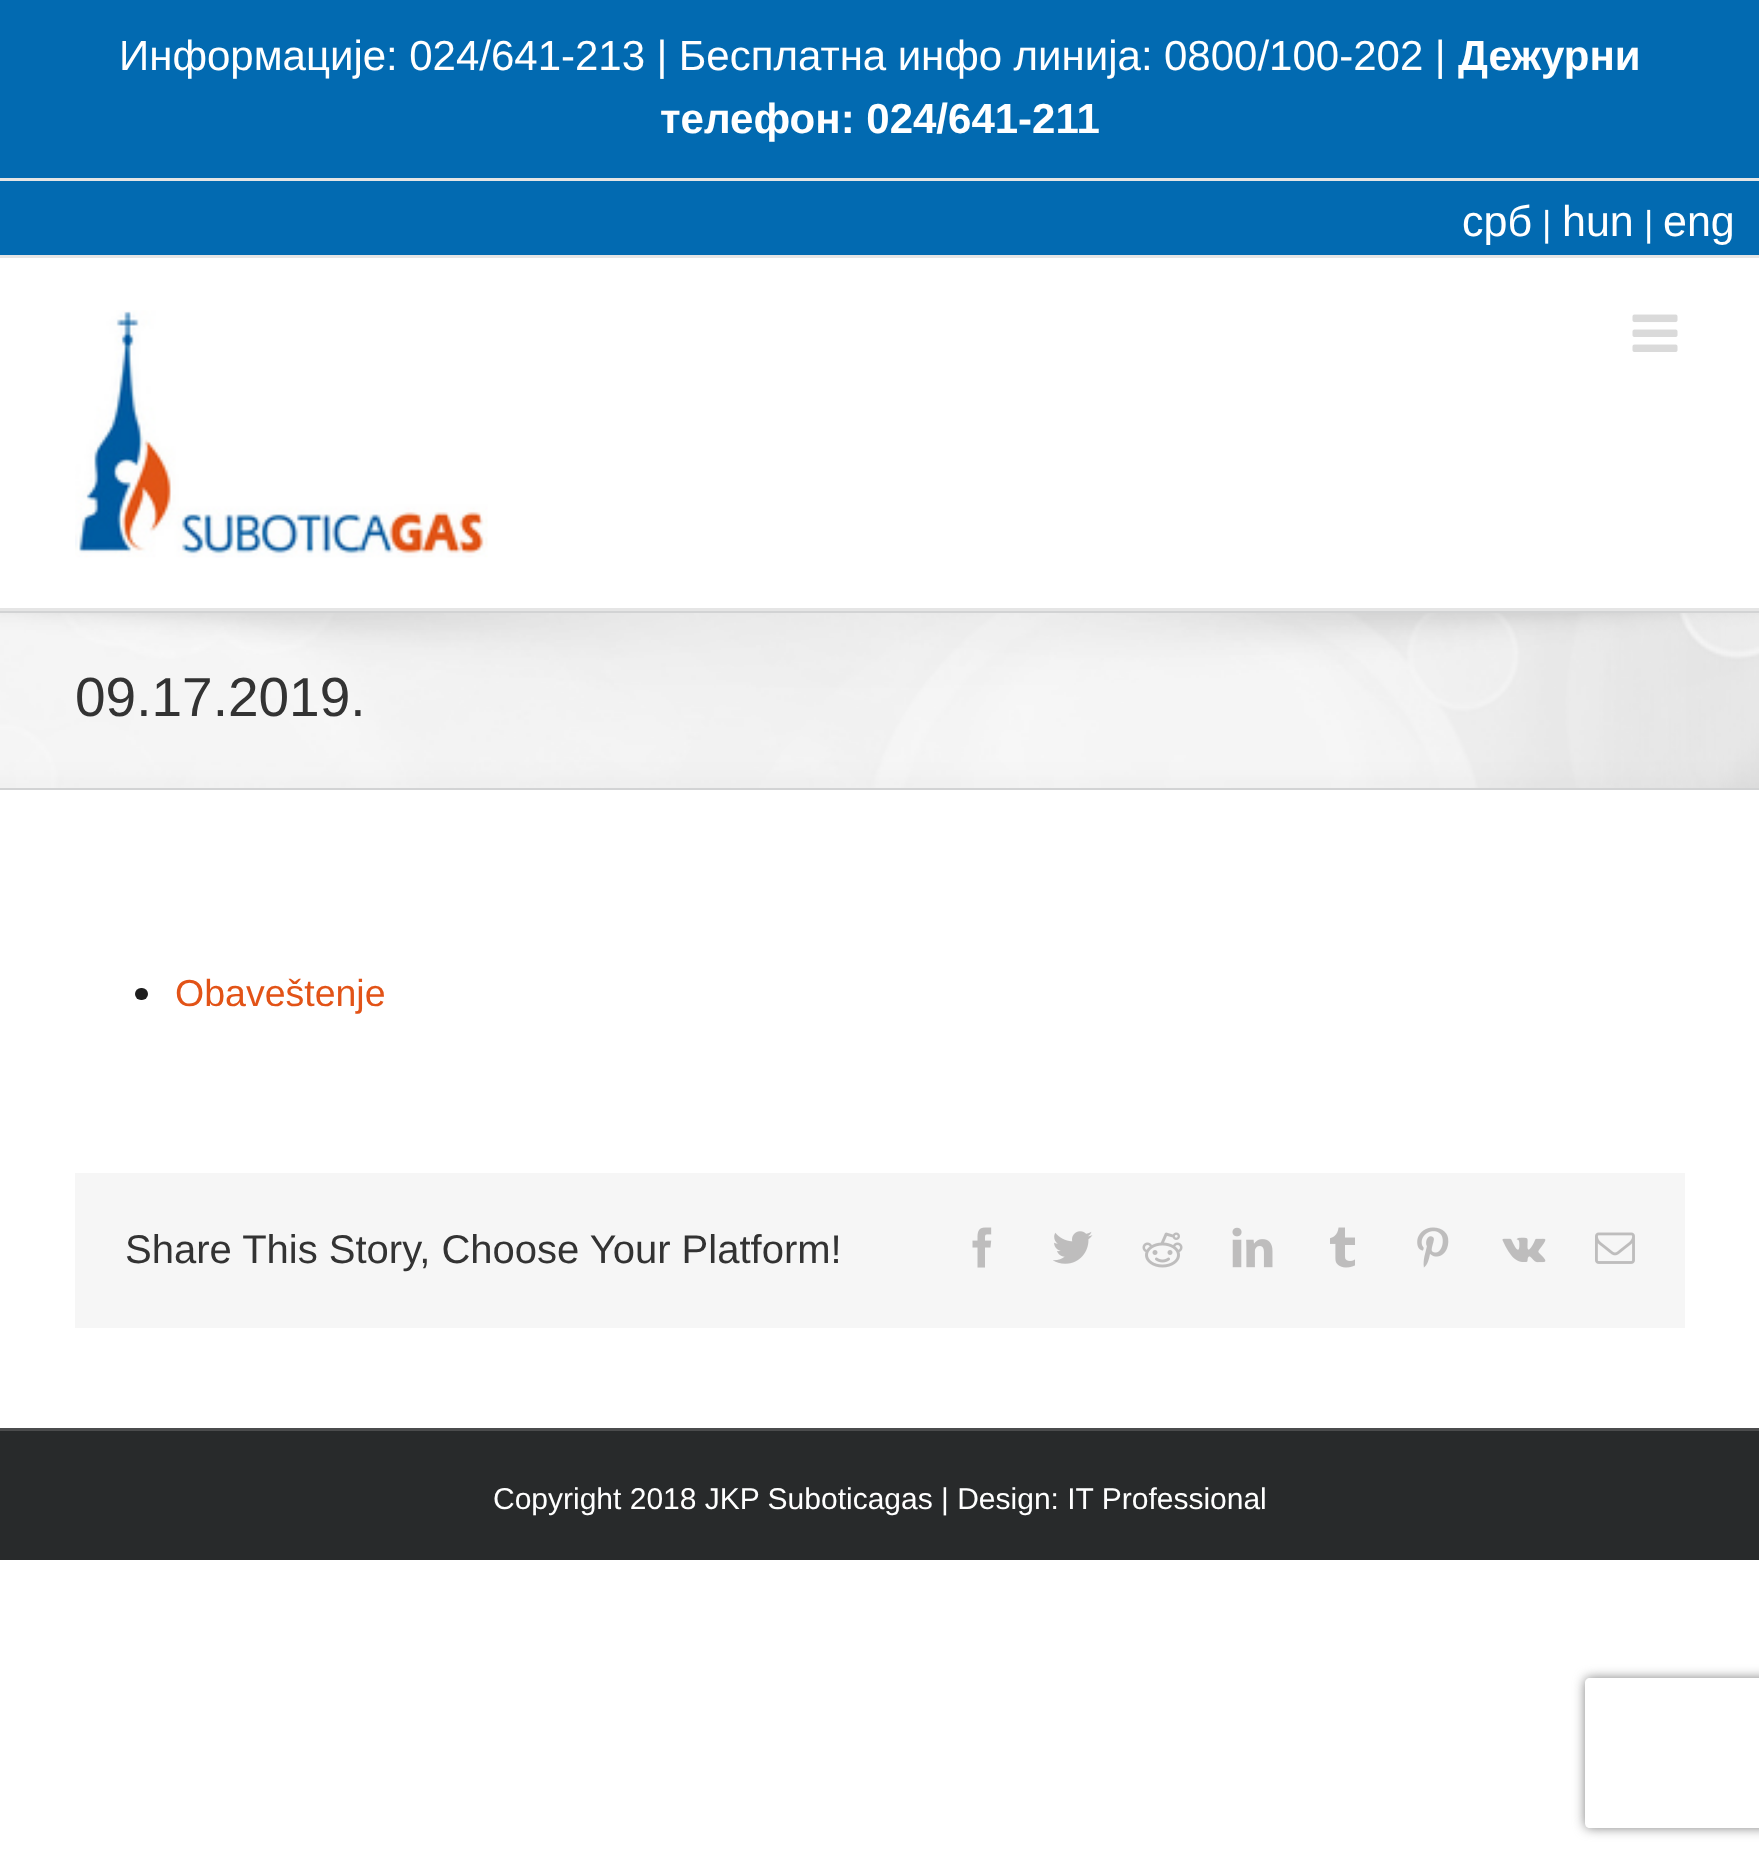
(async () => {
    const canvas = document.querySelector("canvas");
    canvas.width = 1759;
    canvas.height = 1862;
    const context = canvas.getContext("2d");
    context.miterLimit = 4;
    context.fontKerning = "normal";
    function write(s, x, y, font, color) {
        context.font = font;
        context.fillStyle = color;
        context.fillText(s, x, y);
    }
    function block(x, y, w, h, color) {
        context.fillStyle = color;
        context.fillRect(x, y, w, h);
    }
    function card(x, y, w, h, r, color) {
        context.fillStyle = color;
        context.beginPath();
        context.roundRect(x, y, w, h, r);
        context.fill();
    }
    async function photo(src, x, y, w, h) {
        const img = new Image();
        img.src = src;
        await img.decode();
        context.drawImage(img, x, y, w, h);
    }

    block(0, 0, 1759, 1862, "rgb(255, 255, 255)");
    block(0, 0, 1759, 255, "rgb(2, 106, 177)");
    block(0, 255, 1759, 3, "rgb(229, 229, 229)");
    block(0, 178, 1759, 3, "rgb(229, 229, 229)");
    context.wordSpacing = "-0.25px";
    write("Информације: 024/641-213 | Бесплатна инфо линија: 0800/100-202 |", 119, 70, "42px Liberation Sans", "rgb(255, 255, 255)");
    context.wordSpacing = "0px";
    write("Дежурни", 1458, 70, "bold 42px Liberation Sans", "rgb(255, 255, 255)");
    write("телефон: 024/641-211", 660, 133, "bold 42px Liberation Sans", "rgb(255, 255, 255)");
    write("срб", 1462, 236, "43px Liberation Sans", "rgb(255, 255, 255)");
    write("|", 1542, 236, "36px Liberation Sans", "rgb(255, 255, 255)");
    write("hun", 1562, 236, "43px Liberation Sans", "rgb(255, 255, 255)");
    write("|", 1644, 236, "36px Liberation Sans", "rgb(255, 255, 255)");
    write("eng", 1663, 236, "43px Liberation Sans", "rgb(255, 255, 255)");
    block(0, 608, 1759, 3, "rgb(229, 229, 229)");
    await photo("media/1.png", 75, 310, 413, 248);
    await photo("media/2.png", 1632, 314, 46, 38);
    block(0, 613, 1759, 175, "rgb(246, 246, 246)");
    await photo("media/3.png", 0, 613, 1759, 175);
    block(0, 611, 1759, 2, "rgb(210, 211, 212)");
    block(0, 788, 1759, 2, "rgb(210, 211, 212)");
    write("09.17.2019.", 75, 716, "55px Liberation Sans", "rgb(51, 51, 51)");
    card(135, 988, 13, 12, 6, "rgb(30, 30, 30)");
    write("Obaveštenje", 175, 1006, "37.5px Liberation Sans", "rgb(226, 83, 23)");
    block(75, 1173, 1610, 155, "rgb(246, 246, 246)");
    write("Share This Story, Choose Your Platform!", 125, 1263, "40px Liberation Sans", "rgb(51, 51, 51)");
    await photo("media/4.png", 972, 1227, 20, 41);
    await photo("media/5.png", 1053, 1231, 40, 33);
    await photo("media/6.png", 1142, 1232, 41, 36);
    await photo("media/7.png", 1232, 1227, 41, 41);
    await photo("media/8.png", 1330, 1227, 25, 41);
    await photo("media/9.png", 1417, 1227, 32, 41);
    await photo("media/10.png", 1502, 1237, 44, 26);
    await photo("media/11.png", 1595, 1232, 40, 32);
    block(0, 1431, 1759, 129, "rgb(40, 42, 43)");
    block(0, 1428, 1759, 3, "rgb(75, 76, 77)");
    write("Copyright 2018 JKP Suboticagas | Design: IT Professional", 493, 1509, "30px Liberation Sans", "rgb(255, 255, 255)");
    context.save();
    context.beginPath();
    context.moveTo(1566, 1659);
    context.lineTo(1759, 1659);
    context.lineTo(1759, 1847);
    context.lineTo(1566, 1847);
    context.closePath();
    context.moveTo(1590, 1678);
    context.lineTo(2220, 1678);
    context.bezierCurveTo(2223, 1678, 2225, 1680, 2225, 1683);
    context.lineTo(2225, 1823);
    context.bezierCurveTo(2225, 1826, 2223, 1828, 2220, 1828);
    context.lineTo(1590, 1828);
    context.bezierCurveTo(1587, 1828, 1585, 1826, 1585, 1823);
    context.lineTo(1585, 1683);
    context.bezierCurveTo(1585, 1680, 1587, 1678, 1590, 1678);
    context.closePath();
    context.clip("evenodd");
    context.fillStyle = "rgb(128, 128, 128)";
    context.filter = "blur(6px)";
    context.beginPath();
    context.roundRect(1585, 1678, 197, 150, 5);
    context.fill();
    context.filter = "none";
    context.restore();
})();
